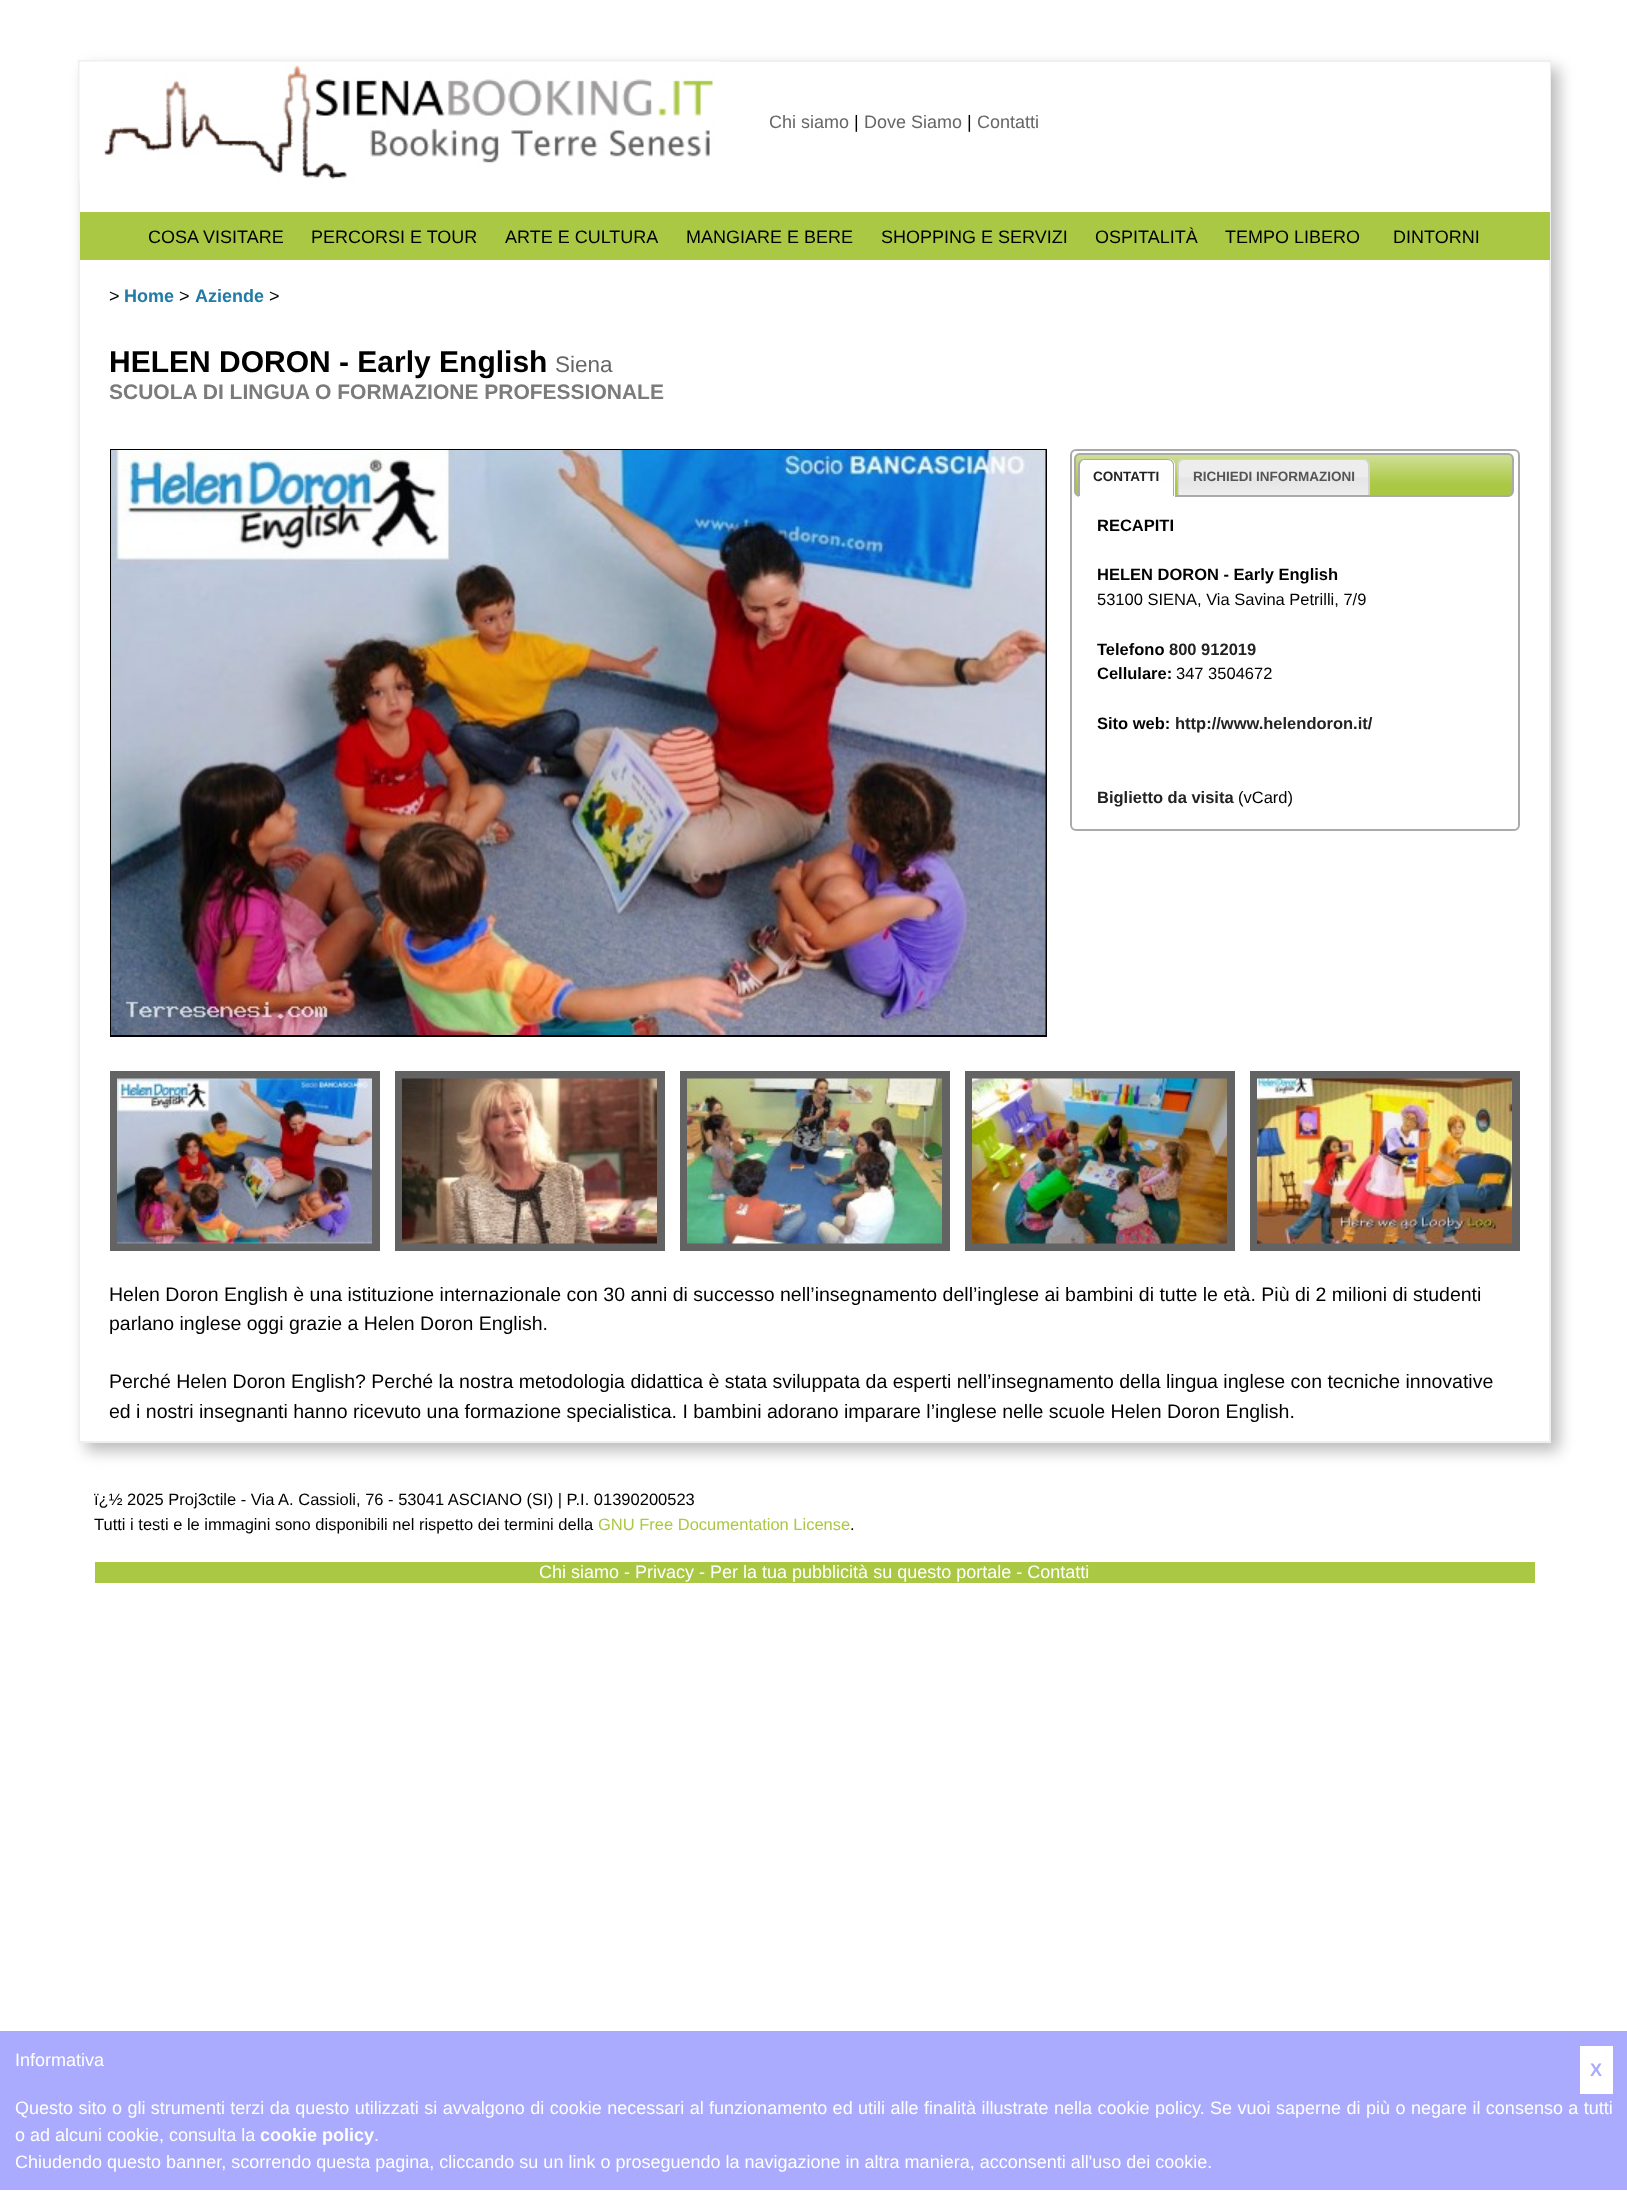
(async () => {
    const canvas = document.querySelector("canvas");
    canvas.width = 1627;
    canvas.height = 2197;
    const context = canvas.getContext("2d");
    context.miterLimit = 4;
    context.fontKerning = "normal";
    function write(s, x, y, font, color) {
        context.font = font;
        context.fillStyle = color;
        context.fillText(s, x, y);
    }
    function block(x, y, w, h, color) {
        context.fillStyle = color;
        context.fillRect(x, y, w, h);
    }
    async function photo(src, x, y, w, h) {
        const img = new Image();
        img.src = src;
        await img.decode();
        context.drawImage(img, x, y, w, h);
    }

    block(0, 0, 1627, 2197, "rgb(255, 255, 255)");
    context.save();
    context.beginPath();
    context.moveTo(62, 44);
    context.lineTo(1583, 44);
    context.lineTo(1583, 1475);
    context.lineTo(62, 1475);
    context.closePath();
    context.moveTo(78, 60);
    context.lineTo(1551, 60);
    context.lineTo(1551, 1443);
    context.lineTo(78, 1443);
    context.closePath();
    context.clip("evenodd");
    context.fillStyle = "rgb(187, 187, 187)";
    context.filter = "blur(7.5px)";
    context.beginPath();
    context.rect(86, 68, 1473, 1383);
    context.fill();
    context.filter = "none";
    context.restore();
    context.strokeStyle = "rgb(239, 239, 239)";
    context.lineWidth = 2;
    context.strokeRect(79, 61, 1471, 1381);
    block(1549, 62, 1, 150, "rgb(255, 255, 255)");
    await photo("media/1.png", 79, 61, 641, 121);
    write("Chi siamo", 769, 128, "18px Liberation Sans", "rgb(102, 102, 102)");
    write("|", 854, 128, "18px Liberation Sans", "rgb(0, 0, 0)");
    write("Dove Siamo", 864, 128, "18px Liberation Sans", "rgb(102, 102, 102)");
    write("|", 967, 128, "18px Liberation Sans", "rgb(0, 0, 0)");
    write("Contatti", 977, 128, "18px Liberation Sans", "rgb(102, 102, 102)");
    block(80, 212, 1470, 48, "rgb(171, 200, 68)");
    write("COSA VISITARE", 148, 243, "18px Liberation Sans", "rgb(0, 0, 0)");
    write("PERCORSI E TOUR", 311, 243, "18px Liberation Sans", "rgb(0, 0, 0)");
    write("ARTE E CULTURA", 505, 243, "18px Liberation Sans", "rgb(0, 0, 0)");
    write("MANGIARE E BERE", 686, 243, "18px Liberation Sans", "rgb(0, 0, 0)");
    write("SHOPPING E SERVIZI", 881, 243, "18px Liberation Sans", "rgb(0, 0, 0)");
    write("OSPITALITÀ", 1095, 243, "18px Liberation Sans", "rgb(0, 0, 0)");
    write("TEMPO LIBERO", 1225, 243, "18px Liberation Sans", "rgb(0, 0, 0)");
    write("DINTORNI", 1393, 243, "18px Liberation Sans", "rgb(0, 0, 0)");
    write(">", 109, 302, "18px Liberation Sans", "rgb(0, 0, 0)");
    write("Home", 124, 302, "bold 18px Liberation Sans", "rgb(34, 122, 167)");
    write(">", 179, 302, "18px Liberation Sans", "rgb(0, 0, 0)");
    write("Aziende", 195, 302, "bold 18px Liberation Sans", "rgb(34, 122, 167)");
    write(">", 269, 302, "18px Liberation Sans", "rgb(0, 0, 0)");
    write("HELEN DORON - Early English", 109, 372, "bold 30px Liberation Sans", "rgb(0, 0, 0)");
    write("Siena", 555, 372, "22.5px Liberation Sans", "rgb(102, 102, 102)");
    write("SCUOLA DI LINGUA O FORMAZIONE PROFESSIONALE", 109, 399, "bold 21px Liberation Sans", "rgb(123, 123, 123)");
    context.strokeStyle = "rgb(0, 0, 0)";
    context.strokeRect(111, 450, 935, 586);
    await photo("media/2.png", 111, 450, 935, 585);
    context.beginPath();
    context.roundRect(1071, 450, 448, 380, 5);
    context.strokeStyle = "rgb(170, 170, 170)";
    context.stroke();
    await photo("media/3.png", 1074, 453, 440, 43);
    context.beginPath();
    context.roundRect(1075, 454, 438, 42, 5);
    context.stroke();
    context.fillStyle = "rgb(255, 255, 255)";
    context.beginPath();
    context.roundRect(1079, 459, 96, 38, [6, 6, 0, 0]);
    context.fill();
    await photo("media/4.png", 1078, 459, 96, 38);
    context.fillStyle = "rgb(170, 170, 170)";
    context.beginPath();
    context.moveTo(1084, 459);
    context.lineTo(1168, 459);
    context.bezierCurveTo(1172, 459, 1174, 462, 1174, 465);
    context.lineTo(1174, 496);
    context.lineTo(1078, 496);
    context.lineTo(1078, 465);
    context.bezierCurveTo(1078, 462, 1081, 459, 1084, 459);
    context.closePath();
    context.moveTo(1084, 460);
    context.lineTo(1168, 460);
    context.bezierCurveTo(1171, 460, 1173, 463, 1173, 465);
    context.lineTo(1173, 496);
    context.lineTo(1080, 496);
    context.lineTo(1080, 465);
    context.bezierCurveTo(1080, 463, 1082, 460, 1084, 460);
    context.closePath();
    context.fill("evenodd");
    write("CONTATTI", 1093, 481, "bold 13.5px Liberation Sans", "rgb(34, 34, 34)");
    await photo("media/5.png", 1177, 459, 192, 36);
    context.fillStyle = "rgb(211, 211, 211)";
    context.beginPath();
    context.moveTo(1184, 459);
    context.lineTo(1364, 459);
    context.bezierCurveTo(1367, 459, 1370, 462, 1370, 465);
    context.lineTo(1370, 495);
    context.lineTo(1178, 495);
    context.lineTo(1178, 465);
    context.bezierCurveTo(1178, 462, 1180, 459, 1184, 459);
    context.closePath();
    context.moveTo(1184, 460);
    context.lineTo(1364, 460);
    context.bezierCurveTo(1366, 460, 1368, 463, 1368, 465);
    context.lineTo(1368, 495);
    context.lineTo(1179, 495);
    context.lineTo(1179, 465);
    context.bezierCurveTo(1179, 463, 1181, 460, 1184, 460);
    context.closePath();
    context.fill("evenodd");
    write("RICHIEDI INFORMAZIONI", 1193, 481, "bold 13.5px Liberation Sans", "rgb(85, 85, 85)");
    write("RECAPITI", 1097, 531, "bold 16.5px Liberation Sans", "rgb(0, 0, 0)");
    write("HELEN DORON - Early English", 1097, 580, "bold 16.5px Liberation Sans", "rgb(0, 0, 0)");
    write("53100 SIENA, Via Savina Petrilli, 7/9", 1097, 605, "16.5px Liberation Sans", "rgb(0, 0, 0)");
    write("Telefono", 1097, 655, "bold 16.5px Liberation Sans", "rgb(0, 0, 0)");
    write("800 912019", 1169, 655, "bold 16.5px Liberation Sans", "rgb(34, 34, 34)");
    write("Cellulare:", 1097, 679, "bold 16.5px Liberation Sans", "rgb(0, 0, 0)");
    write("347 3504672", 1176, 679, "16.5px Liberation Sans", "rgb(0, 0, 0)");
    write("Sito web:", 1097, 729, "bold 16.5px Liberation Sans", "rgb(0, 0, 0)");
    write("http://www.helendoron.it/", 1175, 729, "bold 16.5px Liberation Sans", "rgb(34, 34, 34)");
    write("Biglietto da visita", 1097, 803, "bold 16.5px Liberation Sans", "rgb(34, 34, 34)");
    write("(vCard)", 1238, 803, "16.5px Liberation Sans", "rgb(0, 0, 0)");
    context.strokeStyle = "rgb(99, 99, 99)";
    context.lineWidth = 8;
    context.strokeRect(114, 1075, 262, 172);
    await photo("media/6.png", 117, 1078, 255, 166);
    context.strokeRect(399, 1075, 262, 172);
    await photo("media/7.png", 402, 1078, 255, 166);
    context.strokeRect(684, 1075, 262, 172);
    await photo("media/8.png", 687, 1078, 255, 166);
    context.strokeRect(969, 1075, 262, 172);
    await photo("media/9.png", 972, 1078, 255, 166);
    context.strokeRect(1254, 1075, 262, 172);
    await photo("media/10.png", 1257, 1078, 255, 166);
    write("Helen Doron English è una istituzione internazionale con 30 anni di successo nell’insegnamento dell’inglese ai bambini di tutte le età. Più di 2 milioni di studenti", 109, 1301, "19.5px Liberation Sans", "rgb(0, 0, 0)");
    write("parlano inglese oggi grazie a Helen Doron English.", 109, 1330, "19.5px Liberation Sans", "rgb(0, 0, 0)");
    write("Perché Helen Doron English? Perché la nostra metodologia didattica è stata sviluppata da esperti nell’insegnamento della lingua inglese con tecniche innovative", 109, 1388, "19.5px Liberation Sans", "rgb(0, 0, 0)");
    write("ed i nostri insegnanti hanno ricevuto una formazione specialistica. I bambini adorano imparare l’inglese nelle scuole Helen Doron English.", 109, 1418, "19.5px Liberation Sans", "rgb(0, 0, 0)");
    write("ï¿½ 2025 Proj3ctile - Via A. Cassioli, 76 - 53041 ASCIANO (SI) | P.I. 01390200523", 94, 1505, "16.5px Liberation Sans", "rgb(0, 0, 0)");
    write("Tutti i testi e le immagini sono disponibili nel rispetto dei termini della", 94, 1530, "16.5px Liberation Sans", "rgb(0, 0, 0)");
    write("GNU Free Documentation License", 598, 1530, "16.5px Liberation Sans", "rgb(171, 200, 68)");
    write(".", 850, 1530, "16.5px Liberation Sans", "rgb(0, 0, 0)");
    block(95, 1562, 1440, 21, "rgb(171, 200, 68)");
    write("Chi siamo - Privacy - Per la tua pubblicità su questo portale - Contatti", 539, 1578, "18px Liberation Sans", "rgb(255, 255, 255)");
    block(0, 2031, 1627, 159, "rgb(170, 170, 255)");
    write("Informativa", 15, 2066, "18px Liberation Sans", "rgb(255, 255, 255)");
    block(1580, 2046, 33, 48, "rgb(255, 255, 255)");
    write("X", 1590, 2076, "bold 18px Liberation Sans", "rgb(170, 170, 255)");
    context.wordSpacing = "0.45px";
    write("Questo sito o gli strumenti terzi da questo utilizzati si avvalgono di cookie necessari al funzionamento ed utili alle finalità illustrate nella cookie policy. Se vuoi saperne di più o negare il consenso a tutti", 15, 2114, "18px Liberation Sans", "rgb(255, 255, 255)");
    context.wordSpacing = "0px";
    write("o ad alcuni cookie, consulta la", 15, 2141, "18px Liberation Sans", "rgb(255, 255, 255)");
    write("cookie policy", 260, 2141, "bold 18px Liberation Sans", "rgb(255, 255, 255)");
    write(".", 374, 2141, "18px Liberation Sans", "rgb(255, 255, 255)");
    write("Chiudendo questo banner, scorrendo questa pagina, cliccando su un link o proseguendo la navigazione in altra maniera, acconsenti all'uso dei cookie.", 15, 2168, "18px Liberation Sans", "rgb(255, 255, 255)");
})();
